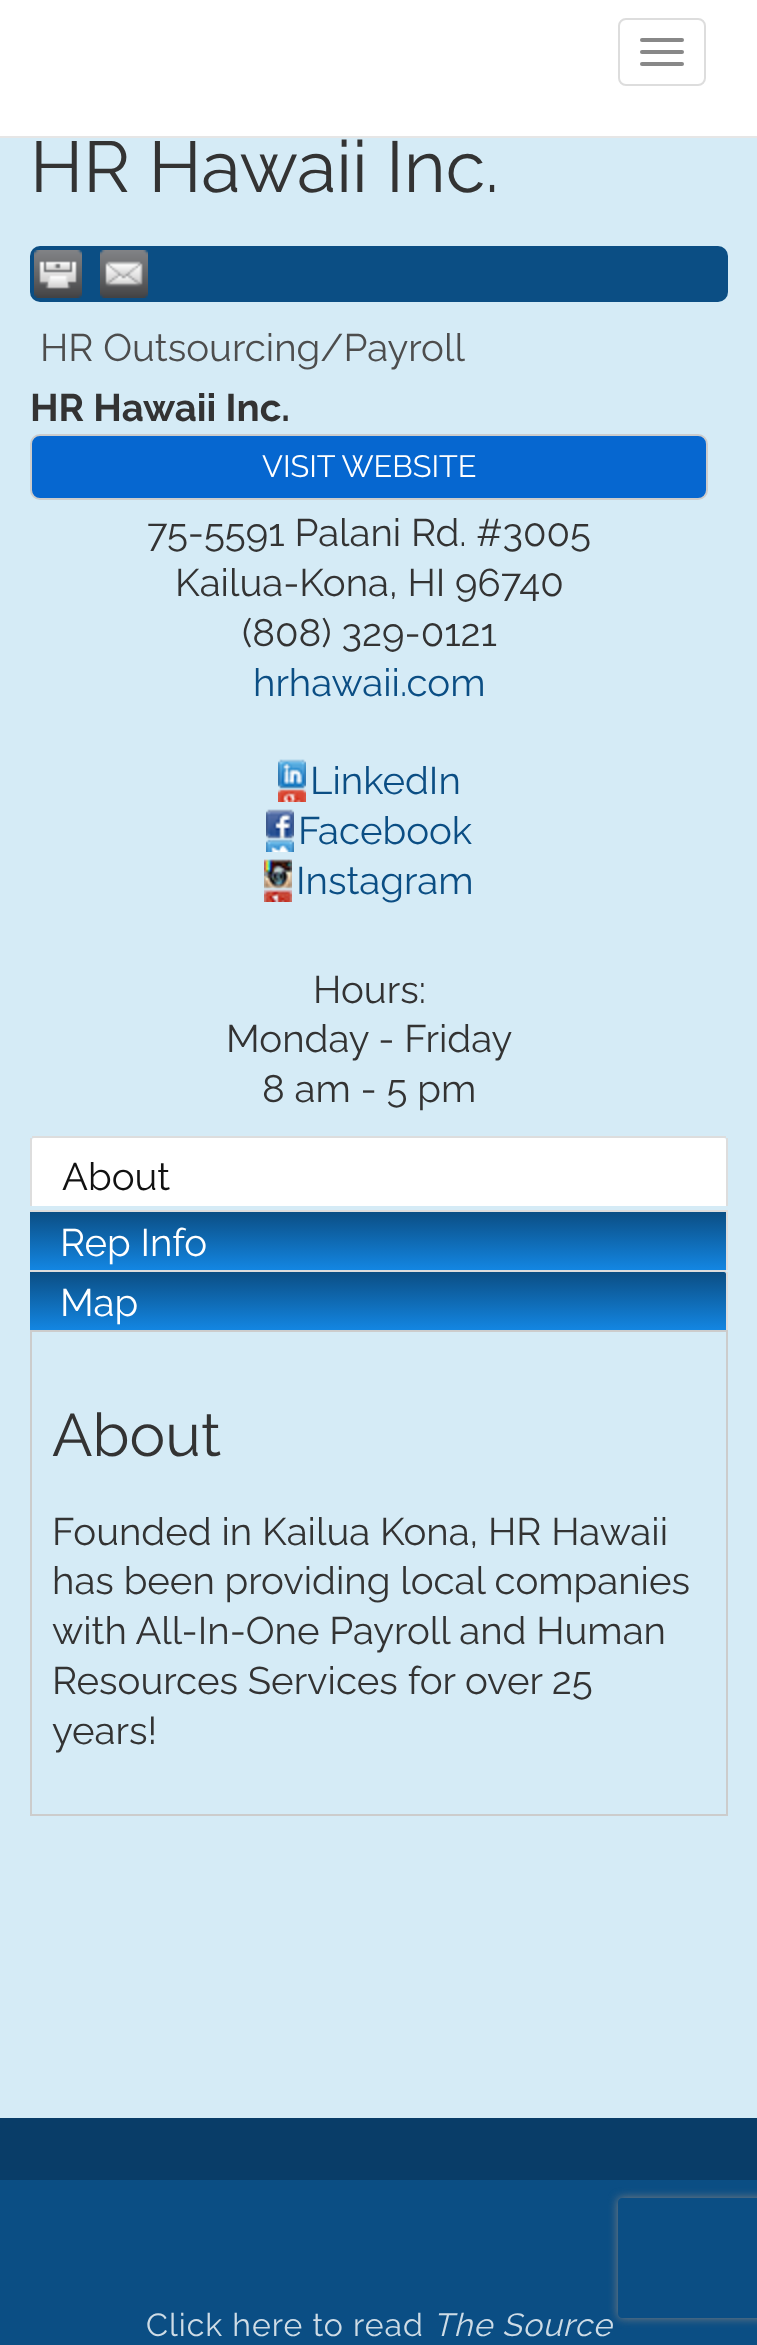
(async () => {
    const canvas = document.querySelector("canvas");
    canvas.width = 757;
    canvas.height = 2345;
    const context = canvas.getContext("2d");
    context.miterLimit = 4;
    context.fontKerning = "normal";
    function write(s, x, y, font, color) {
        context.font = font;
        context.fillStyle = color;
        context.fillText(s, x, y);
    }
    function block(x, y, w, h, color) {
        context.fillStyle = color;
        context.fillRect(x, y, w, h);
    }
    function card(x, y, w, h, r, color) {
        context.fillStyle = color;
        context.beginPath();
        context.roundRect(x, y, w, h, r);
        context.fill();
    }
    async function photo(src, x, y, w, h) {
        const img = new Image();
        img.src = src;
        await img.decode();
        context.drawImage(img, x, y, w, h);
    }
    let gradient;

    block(0, 0, 757, 2345, "rgb(213, 235, 246)");
    block(0, 0, 757, 136, "rgb(255, 255, 255)");
    block(0, 136, 757, 2, "rgb(230, 230, 230)");
    context.beginPath();
    context.roundRect(619, 19, 86, 66, 7);
    context.strokeStyle = "rgb(221, 221, 221)";
    context.lineWidth = 2;
    context.stroke();
    card(640, 38, 44, 4, 2, "rgb(136, 136, 136)");
    card(640, 50, 44, 4, 2, "rgb(136, 136, 136)");
    card(640, 62, 44, 4, 2, "rgb(136, 136, 136)");
    write("HR Hawaii Inc.", 30, 192, "72px Raleway", "rgb(51, 51, 51)");
    card(30, 246, 698, 56, 10, "rgb(11, 78, 132)");
    await photo("media/1.png", 34, 250, 48, 48);
    await photo("media/2.png", 100, 250, 48, 48);
    write("HR Outsourcing/Payroll", 40, 361, "38.4px Raleway", "rgb(77, 77, 77)");
    write("HR Hawaii Inc.", 30, 421, "bold 38.4px Raleway", "rgb(51, 51, 51)");
    context.fillStyle = "rgb(6, 103, 208)";
    context.beginPath();
    context.roundRect(31, 435, 676, 64, 9);
    context.fill();
    context.strokeStyle = "rgb(204, 204, 204)";
    context.stroke();
    write("VISIT WEBSITE", 262, 477, "30.75px Raleway", "rgb(255, 255, 255)");
    write("75-5591 Palani Rd. #3005", 147, 546, "38.4px Raleway", "rgb(51, 51, 51)");
    write("Kailua-Kona, HI 96740", 175, 596, "38.4px Raleway", "rgb(51, 51, 51)");
    write("(808) 329-0121", 242, 646, "38.4px Raleway", "rgb(51, 51, 51)");
    write("hrhawaii.com", 253, 696, "38.4px Raleway", "rgb(11, 78, 132)");
    await photo("media/3.png", 278, 759, 28, 43);
    write("LinkedIn", 310, 794, "38.4px Raleway", "rgb(11, 78, 132)");
    await photo("media/4.png", 266, 809, 28, 43);
    write("Facebook", 298, 844, "38.4px Raleway", "rgb(11, 78, 132)");
    await photo("media/5.png", 264, 859, 28, 43);
    write("Instagram", 296, 894, "38.4px Raleway", "rgb(11, 78, 132)");
    write("Hours:", 313, 1003, "38.4px Raleway", "rgb(51, 51, 51)");
    write("Monday - Friday", 226, 1052, "38.4px Raleway", "rgb(51, 51, 51)");
    write("8 am - 5 pm", 262, 1102, "38.4px Raleway", "rgb(51, 51, 51)");
    context.fillStyle = "rgb(255, 255, 255)";
    context.beginPath();
    context.roundRect(32, 1138, 694, 68, [2, 2, 0, 0]);
    context.fill();
    block(32, 1136, 694, 2, "rgb(221, 221, 221)");
    block(726, 1138, 2, 68, "rgb(221, 221, 221)");
    block(30, 1138, 2, 68, "rgb(221, 221, 221)");
    write("About", 62, 1190, "38.4px Raleway", "rgb(17, 17, 17)");
    gradient = context.createLinearGradient(378, 1212, 378, 1270);
    gradient.addColorStop(0, "rgb(11, 78, 132)");
    gradient.addColorStop(1, "rgb(19, 134, 226)");
    context.fillStyle = gradient;
    context.fillRect(30, 1212, 696, 58);
    block(30, 1210, 698, 2, "rgb(221, 221, 221)");
    block(726, 1210, 2, 60, "rgb(221, 221, 221)");
    write("Rep Info", 60, 1256, "38.4px Raleway", "rgb(255, 255, 255)");
    gradient = context.createLinearGradient(378, 1272, 378, 1330);
    gradient.addColorStop(0, "rgb(11, 78, 132)");
    gradient.addColorStop(1, "rgb(19, 134, 226)");
    context.fillStyle = gradient;
    context.beginPath();
    context.roundRect(30, 1272, 696, 58, [0, 2, 0, 0]);
    context.fill();
    block(30, 1270, 696, 2, "rgb(221, 221, 221)");
    block(726, 1272, 2, 58, "rgb(221, 221, 221)");
    write("Map", 60, 1316, "38.4px Raleway", "rgb(255, 255, 255)");
    context.strokeRect(31, 1331, 696, 484);
    write("About", 52, 1456, "60px Raleway", "rgb(51, 51, 51)");
    write("Founded in Kailua Kona, HR Hawaii", 52, 1545, "38.4px Raleway", "rgb(51, 51, 51)");
    write("has been providing local companies", 52, 1594, "38.4px Raleway", "rgb(51, 51, 51)");
    write("with All-In-One Payroll and Human", 52, 1644, "38.4px Raleway", "rgb(51, 51, 51)");
    write("Resources Services for over 25", 52, 1694, "38.4px Raleway", "rgb(51, 51, 51)");
    write("years!", 52, 1744, "38.4px Raleway", "rgb(51, 51, 51)");
    block(0, 2118, 757, 62, "rgb(9, 61, 104)");
    block(0, 2180, 757, 165, "rgb(11, 78, 132)");
    context.letterSpacing = "1px";
    write("Click here to read", 146, 2336, "32px Raleway", "rgb(206, 220, 230)");
    write("The Source", 433, 2336, "italic 32px Raleway", "rgb(206, 220, 230)");
    context.save();
    context.beginPath();
    context.moveTo(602, 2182);
    context.lineTo(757, 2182);
    context.lineTo(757, 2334);
    context.lineTo(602, 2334);
    context.closePath();
    context.moveTo(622, 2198);
    context.lineTo(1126, 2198);
    context.bezierCurveTo(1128, 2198, 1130, 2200, 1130, 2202);
    context.lineTo(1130, 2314);
    context.bezierCurveTo(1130, 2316, 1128, 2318, 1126, 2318);
    context.lineTo(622, 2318);
    context.bezierCurveTo(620, 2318, 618, 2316, 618, 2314);
    context.lineTo(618, 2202);
    context.bezierCurveTo(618, 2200, 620, 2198, 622, 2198);
    context.closePath();
    context.clip("evenodd");
    context.fillStyle = "rgb(128, 128, 128)";
    context.filter = "blur(5px)";
    context.beginPath();
    context.roundRect(618, 2198, 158, 120, 4);
    context.fill();
    context.filter = "none";
    context.restore();
})();
